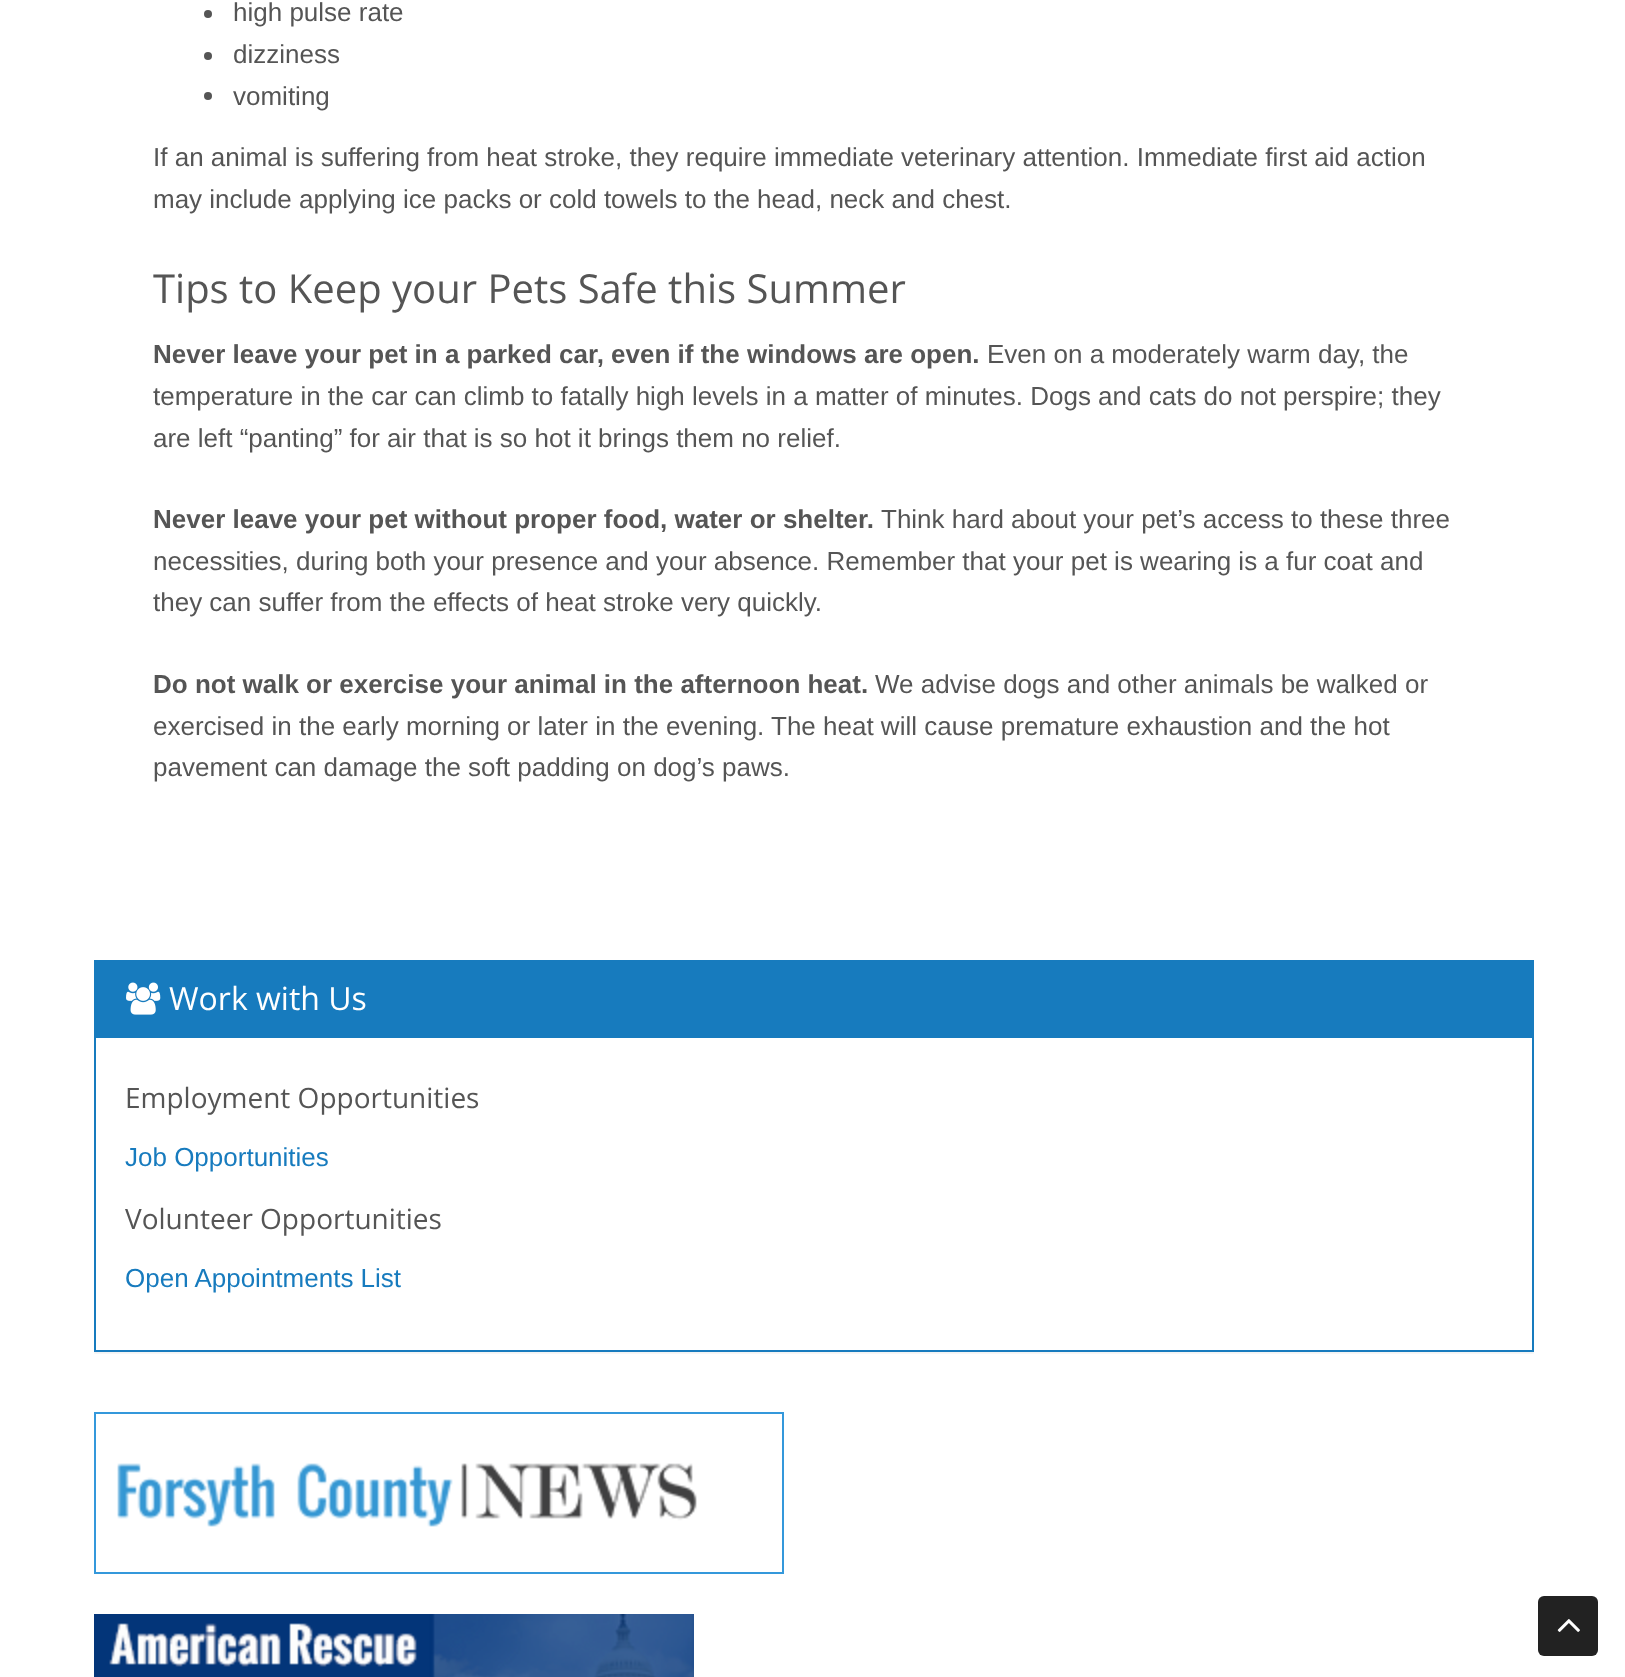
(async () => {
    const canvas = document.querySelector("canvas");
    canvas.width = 1625;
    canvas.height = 1677;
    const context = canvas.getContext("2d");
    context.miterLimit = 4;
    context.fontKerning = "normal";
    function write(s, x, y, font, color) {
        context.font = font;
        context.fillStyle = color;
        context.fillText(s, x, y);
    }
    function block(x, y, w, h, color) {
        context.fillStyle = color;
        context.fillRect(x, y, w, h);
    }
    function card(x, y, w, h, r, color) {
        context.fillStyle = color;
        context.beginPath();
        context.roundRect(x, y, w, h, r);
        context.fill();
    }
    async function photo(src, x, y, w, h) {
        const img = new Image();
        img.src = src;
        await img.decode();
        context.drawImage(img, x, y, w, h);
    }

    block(0, 0, 1625, 1677, "rgb(255, 255, 255)");
    context.fillStyle = "rgb(85, 85, 85)";
    context.beginPath();
    context.arc(208, 14, 4, 0, Math.PI * 2);
    context.fill();
    write("high pulse rate", 233, 21, "26px Liberation Sans", "rgb(85, 85, 85)");
    context.beginPath();
    context.arc(208, 56, 4, 0, Math.PI * 2);
    context.fill();
    write("dizziness", 233, 63, "26px Liberation Sans", "rgb(85, 85, 85)");
    context.beginPath();
    context.arc(208, 96, 4, 0, Math.PI * 2);
    context.fill();
    write("vomiting", 233, 105, "26px Liberation Sans", "rgb(85, 85, 85)");
    write("If an animal is suffering from heat stroke, they require immediate veterinary attention. Immediate first aid action", 153, 166, "26px Liberation Sans", "rgb(85, 85, 85)");
    write("may include applying ice packs or cold towels to the head, neck and chest.", 153, 208, "26px Liberation Sans", "rgb(85, 85, 85)");
    write("Tips to Keep your Pets Safe this Summer", 153, 303, "40px Open Sans", "rgb(85, 85, 85)");
    write("Never leave your pet in a parked car, even if the windows are open.", 153, 363, "bold 26px Liberation Sans", "rgb(85, 85, 85)");
    write("Even on a moderately warm day, the", 987, 363, "26px Liberation Sans", "rgb(85, 85, 85)");
    write("temperature in the car can climb to fatally high levels in a matter of minutes. Dogs and cats do not perspire; they", 153, 405, "26px Liberation Sans", "rgb(85, 85, 85)");
    write("are left “panting” for air that is so hot it brings them no relief.", 153, 447, "26px Liberation Sans", "rgb(85, 85, 85)");
    write("Never leave your pet without proper food, water or shelter.", 153, 528, "bold 26px Liberation Sans", "rgb(85, 85, 85)");
    write("Think hard about your pet’s access to these three", 881, 528, "26px Liberation Sans", "rgb(85, 85, 85)");
    write("necessities, during both your presence and your absence. Remember that your pet is wearing is a fur coat and", 153, 570, "26px Liberation Sans", "rgb(85, 85, 85)");
    write("they can suffer from the effects of heat stroke very quickly.", 153, 611, "26px Liberation Sans", "rgb(85, 85, 85)");
    write("Do not walk or exercise your animal in the afternoon heat.", 153, 693, "bold 26px Liberation Sans", "rgb(85, 85, 85)");
    write("We advise dogs and other animals be walked or", 875, 693, "26px Liberation Sans", "rgb(85, 85, 85)");
    write("exercised in the early morning or later in the evening.", 153, 735, "26px Liberation Sans", "rgb(85, 85, 85)");
    write("The heat will cause premature exhaustion and the hot", 771, 735, "26px Liberation Sans", "rgb(85, 85, 85)");
    write("pavement can damage the soft padding on dog’s paws.", 153, 776, "26px Liberation Sans", "rgb(85, 85, 85)");
    context.save();
    context.beginPath();
    context.rect(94, 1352, 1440, 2);
    context.clip();
    context.fillStyle = "rgba(0, 0, 0, 0.05)";
    context.filter = "blur(1px)";
    context.beginPath();
    context.rect(94, 962, 1440, 392);
    context.fill();
    context.filter = "none";
    context.restore();
    context.strokeStyle = "rgb(23, 123, 190)";
    context.lineWidth = 2;
    context.strokeRect(95, 961, 1438, 390);
    block(96, 962, 1436, 76, "rgb(23, 123, 190)");
    await photo("media/1.png", 126, 982, 35, 33);
    write("Work with Us", 169, 1010, "32px Open Sans", "rgb(255, 255, 255)");
    write("Employment Opportunities", 125, 1108, "28px Open Sans", "rgb(85, 85, 85)");
    write("Job Opportunities", 125, 1166, "26px Liberation Sans", "rgb(23, 123, 190)");
    write("Volunteer Opportunities", 125, 1229, "28px Open Sans", "rgb(85, 85, 85)");
    write("Open Appointments List", 125, 1287, "26px Liberation Sans", "rgb(23, 123, 190)");
    context.strokeStyle = "rgb(52, 152, 219)";
    context.strokeRect(95, 1413, 688, 160);
    await photo("media/2.png", 117, 1463, 580, 64);
    await photo("media/3.png", 94, 1614, 600, 63);
    card(1538, 1596, 60, 60, 6, "rgb(34, 34, 34)");
    await photo("media/4.png", 1557, 1619, 23, 13);
})();
